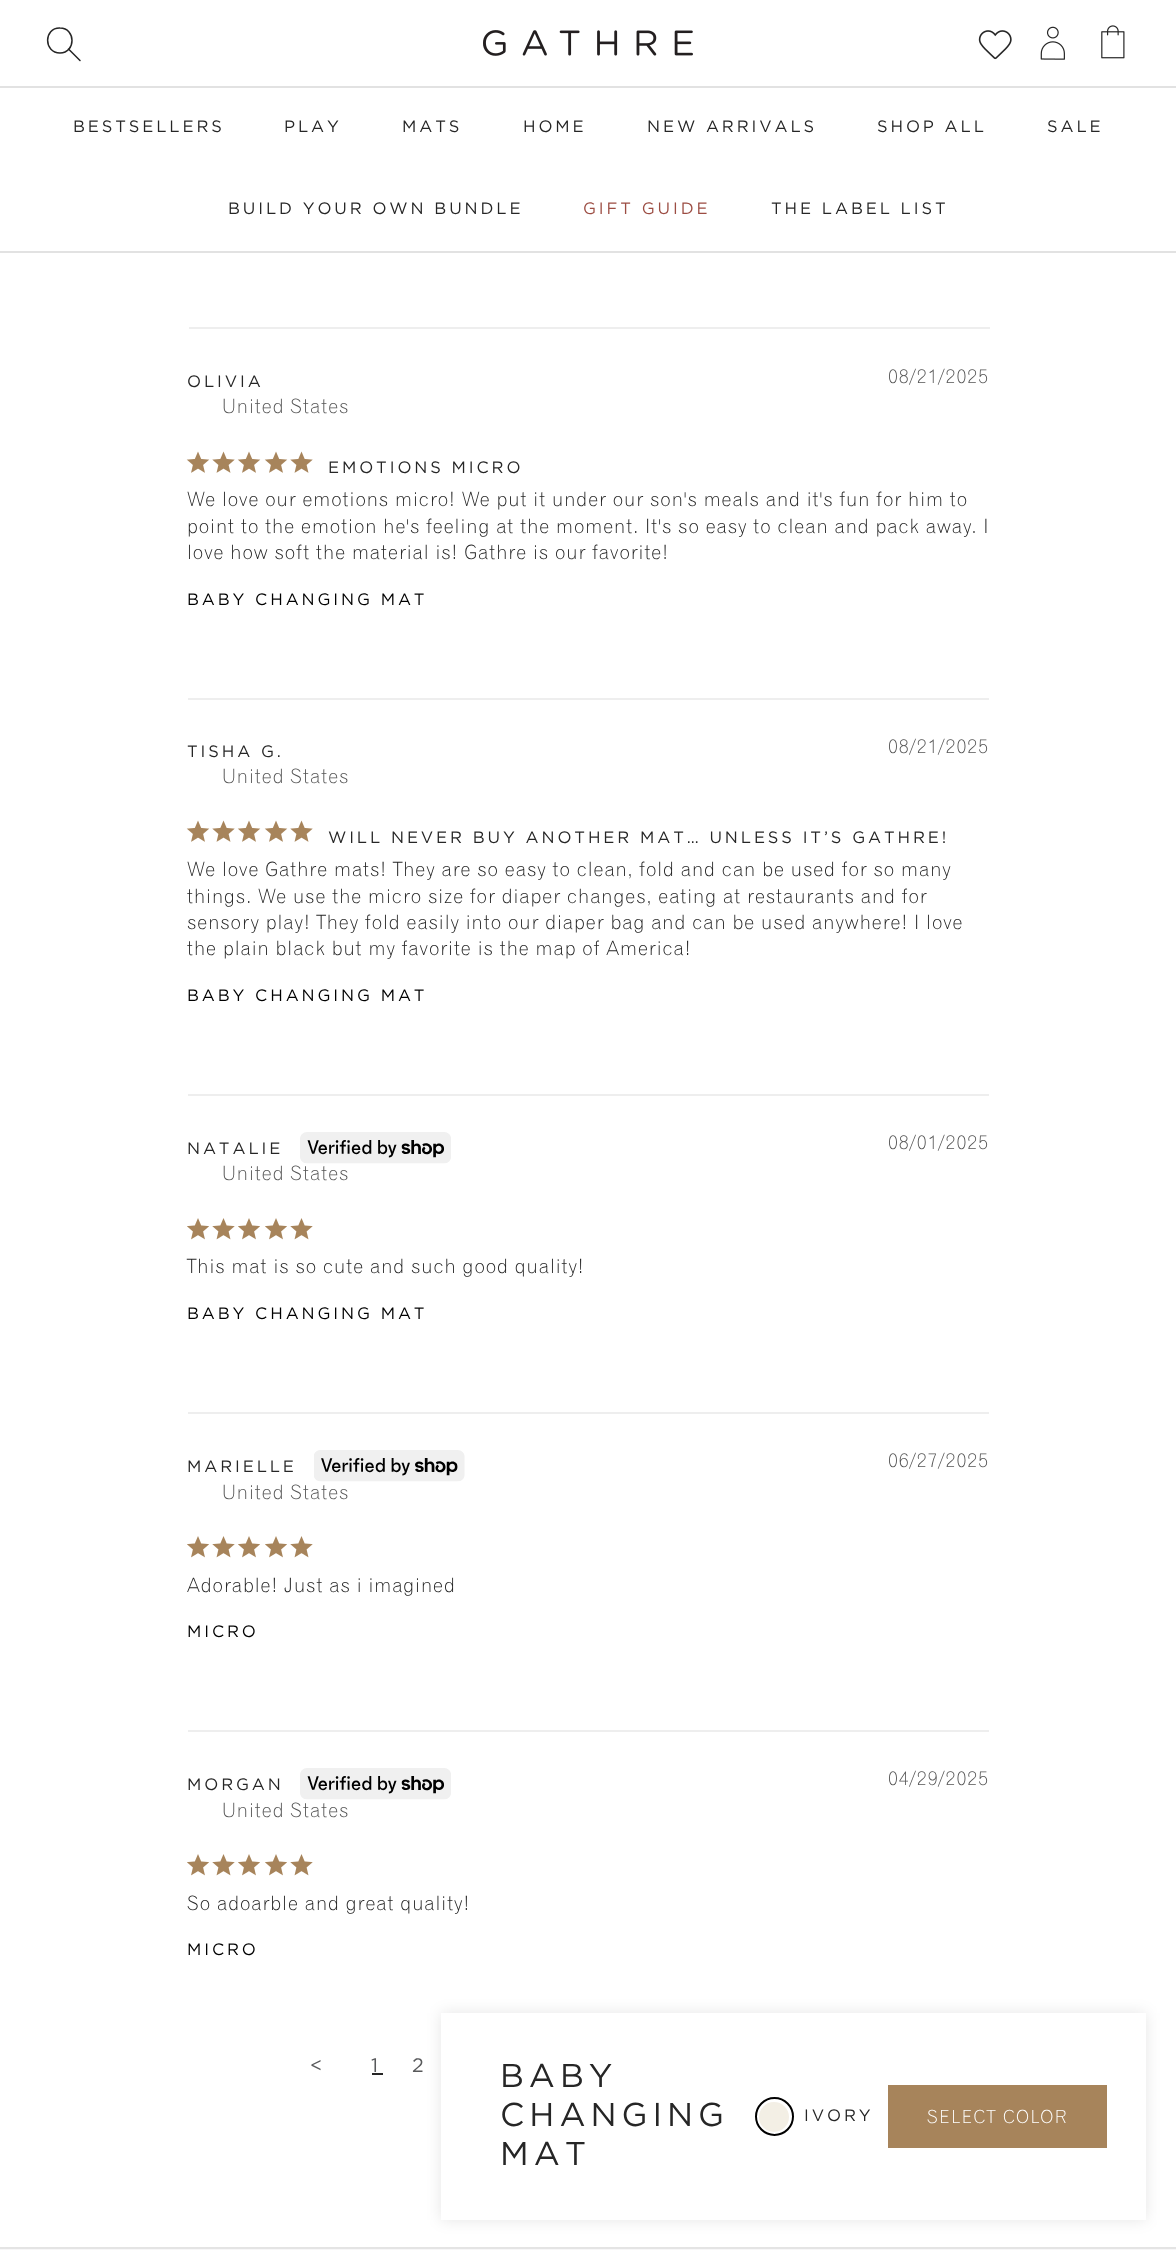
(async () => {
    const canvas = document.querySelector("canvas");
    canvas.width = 1176;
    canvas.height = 2250;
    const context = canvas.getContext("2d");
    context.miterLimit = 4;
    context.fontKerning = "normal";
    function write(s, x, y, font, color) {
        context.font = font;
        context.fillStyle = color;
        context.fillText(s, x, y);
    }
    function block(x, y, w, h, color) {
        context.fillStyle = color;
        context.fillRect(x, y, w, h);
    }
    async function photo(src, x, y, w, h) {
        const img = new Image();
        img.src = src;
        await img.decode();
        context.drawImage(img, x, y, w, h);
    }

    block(0, 0, 1176, 2250, "rgb(255, 255, 255)");
    block(0, 86, 1176, 2, "rgb(226, 226, 226)");
    context.beginPath();
    context.moveTo(60, 53);
    context.bezierCurveTo(76, 53, 76, 28, 60, 28);
    context.bezierCurveTo(43.5, 27.5, 43.5, 53, 60, 53);
    context.closePath();
    context.moveTo(68.5, 49);
    context.lineTo(80, 60.5);
    context.strokeStyle = "rgb(38, 38, 38)";
    context.lineWidth = 1.5;
    context.lineCap = "round";
    context.lineJoin = "round";
    context.stroke();
    await photo("media/1.png", 483, 30, 210, 26);
    await photo("media/2.png", 978, 30, 34, 30);
    await photo("media/3.png", 1040, 26, 25, 34);
    await photo("media/4.png", 1101, 25, 24, 34);
    block(0, 251, 1176, 2, "rgb(226, 226, 226)");
    context.letterSpacing = "2.9px";
    write("BESTSELLERS", 73, 132, "16.5px Gotham", "rgb(38, 38, 38)");
    write("PLAY", 284, 132, "16.5px Gotham", "rgb(38, 38, 38)");
    write("MATS", 402, 132, "16.5px Gotham", "rgb(38, 38, 38)");
    write("HOME", 523, 132, "16.5px Gotham", "rgb(38, 38, 38)");
    write("NEW ARRIVALS", 647, 132, "16.5px Gotham", "rgb(38, 38, 38)");
    write("SHOP ALL", 877, 132, "16.5px Gotham", "rgb(38, 38, 38)");
    write("SALE", 1047, 132, "16.5px Gotham", "rgb(38, 38, 38)");
    write("BUILD YOUR OWN BUNDLE", 228, 214, "16.5px Gotham", "rgb(38, 38, 38)");
    write("GIFT GUIDE", 583, 214, "16.5px Gotham", "rgb(156, 77, 67)");
    write("THE LABEL LIST", 771, 214, "16.5px Gotham", "rgb(38, 38, 38)");
    block(189, 327, 801, 2, "rgb(238, 238, 238)");
    write("OLIVIA", 187, 387, "16.5px Gotham", "rgb(38, 38, 38)");
    context.letterSpacing = "0.95px";
    write("08/21/2025", 888, 383, "300 19.5px 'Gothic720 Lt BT'", "rgb(85, 85, 85)");
    write("United States", 222, 413, "300 19.5px 'Gothic720 Lt BT'", "rgb(85, 85, 85)");
    await photo("media/5.png", 186, 451, 24, 22);
    await photo("media/6.png", 212, 451, 23, 22);
    await photo("media/5.png", 237, 451, 24, 22);
    await photo("media/5.png", 264, 451, 24, 22);
    await photo("media/6.png", 290, 451, 23, 22);
    context.letterSpacing = "2.9px";
    write("EMOTIONS MICRO", 328, 473, "16.5px Gotham", "rgb(38, 38, 38)");
    context.letterSpacing = "0.95px";
    write("We love our emotions micro! We put it under our son's meals and it's fun for him to", 187, 506, "300 19.5px 'Gothic720 Lt BT'", "rgb(38, 38, 38)");
    write("point to the emotion he's feeling at the moment. It's so easy to clean and pack away. I", 187, 533, "300 19.5px 'Gothic720 Lt BT'", "rgb(38, 38, 38)");
    write("love how soft the material is! Gathre is our favorite!", 187, 559, "300 19.5px 'Gothic720 Lt BT'", "rgb(38, 38, 38)");
    context.letterSpacing = "2.9px";
    write("BABY CHANGING MAT", 187, 605, "16.5px Gotham", "rgb(0, 0, 0)");
    block(188, 698, 801, 2, "rgb(238, 238, 238)");
    write("TISHA G.", 187, 757, "16.5px Gotham", "rgb(38, 38, 38)");
    context.letterSpacing = "0.95px";
    write("08/21/2025", 888, 753, "300 19.5px 'Gothic720 Lt BT'", "rgb(85, 85, 85)");
    write("United States", 222, 783, "300 19.5px 'Gothic720 Lt BT'", "rgb(85, 85, 85)");
    await photo("media/5.png", 186, 820, 24, 22);
    await photo("media/6.png", 212, 820, 23, 22);
    await photo("media/5.png", 237, 820, 24, 22);
    await photo("media/5.png", 264, 820, 24, 22);
    await photo("media/6.png", 290, 820, 23, 22);
    context.letterSpacing = "2.9px";
    write("WILL NEVER BUY ANOTHER MAT… UNLESS IT’S GATHRE!", 328, 843, "16.5px Gotham", "rgb(38, 38, 38)");
    context.letterSpacing = "0.95px";
    write("We love Gathre mats! They are so easy to clean, fold and can be used for so many", 187, 876, "300 19.5px 'Gothic720 Lt BT'", "rgb(38, 38, 38)");
    write("things. We use the micro size for diaper changes, eating at restaurants and for", 187, 903, "300 19.5px 'Gothic720 Lt BT'", "rgb(38, 38, 38)");
    write("sensory play! They fold easily into our diaper bag and can be used anywhere! I love", 187, 929, "300 19.5px 'Gothic720 Lt BT'", "rgb(38, 38, 38)");
    write("the plain black but my favorite is the map of America!", 187, 955, "300 19.5px 'Gothic720 Lt BT'", "rgb(38, 38, 38)");
    context.letterSpacing = "2.9px";
    write("BABY CHANGING MAT", 187, 1001, "16.5px Gotham", "rgb(0, 0, 0)");
    block(188, 1094, 801, 2, "rgb(238, 238, 238)");
    write("NATALIE", 187, 1154, "16.5px Gotham", "rgb(38, 38, 38)");
    await photo("media/7.png", 300, 1132, 151, 32);
    context.letterSpacing = "0.95px";
    write("08/01/2025", 888, 1149, "300 19.5px 'Gothic720 Lt BT'", "rgb(85, 85, 85)");
    write("United States", 222, 1180, "300 19.5px 'Gothic720 Lt BT'", "rgb(85, 85, 85)");
    await photo("media/8.png", 187, 1218, 22, 22);
    await photo("media/9.png", 212, 1218, 23, 22);
    await photo("media/8.png", 238, 1218, 22, 22);
    await photo("media/8.png", 265, 1218, 22, 22);
    await photo("media/9.png", 290, 1218, 23, 22);
    write("This mat is so cute and such good quality!", 187, 1273, "300 19.5px 'Gothic720 Lt BT'", "rgb(38, 38, 38)");
    context.letterSpacing = "2.9px";
    write("BABY CHANGING MAT", 187, 1319, "16.5px Gotham", "rgb(0, 0, 0)");
    block(188, 1412, 801, 2, "rgb(238, 238, 238)");
    write("MARIELLE", 187, 1472, "16.5px Gotham", "rgb(38, 38, 38)");
    await photo("media/10.png", 314, 1450, 151, 32);
    context.letterSpacing = "0.95px";
    write("06/27/2025", 888, 1467, "300 19.5px 'Gothic720 Lt BT'", "rgb(85, 85, 85)");
    write("United States", 222, 1499, "300 19.5px 'Gothic720 Lt BT'", "rgb(85, 85, 85)");
    await photo("media/8.png", 187, 1536, 22, 22);
    await photo("media/9.png", 212, 1536, 23, 22);
    await photo("media/8.png", 238, 1536, 22, 22);
    await photo("media/8.png", 265, 1536, 22, 22);
    await photo("media/9.png", 290, 1536, 23, 22);
    write("Adorable! Just as i imagined", 187, 1592, "300 19.5px 'Gothic720 Lt BT'", "rgb(38, 38, 38)");
    context.letterSpacing = "2.9px";
    write("MICRO", 187, 1637, "16.5px Gotham", "rgb(0, 0, 0)");
    block(188, 1730, 801, 2, "rgb(238, 238, 238)");
    write("MORGAN", 187, 1790, "16.5px Gotham", "rgb(38, 38, 38)");
    await photo("media/7.png", 300, 1768, 151, 32);
    context.letterSpacing = "0.95px";
    write("04/29/2025", 888, 1785, "300 19.5px 'Gothic720 Lt BT'", "rgb(85, 85, 85)");
    write("United States", 222, 1817, "300 19.5px 'Gothic720 Lt BT'", "rgb(85, 85, 85)");
    await photo("media/8.png", 187, 1854, 22, 22);
    await photo("media/9.png", 212, 1854, 23, 22);
    await photo("media/8.png", 238, 1854, 22, 22);
    await photo("media/8.png", 265, 1854, 22, 22);
    await photo("media/9.png", 290, 1854, 23, 22);
    write("So adoarble and great quality!", 187, 1910, "300 19.5px 'Gothic720 Lt BT'", "rgb(38, 38, 38)");
    context.letterSpacing = "2.9px";
    write("MICRO", 187, 1955, "16.5px Gotham", "rgb(0, 0, 0)");
    context.letterSpacing = "3px";
    write("<", 310, 2072, "19.5px Gotham", "rgb(88, 89, 91)");
    write("1", 371, 2072, "19.5px Gotham", "rgb(88, 89, 91)");
    block(372, 2073, 11, 2, "rgb(38, 38, 38)");
    write("2", 412, 2072, "19.5px Gotham", "rgb(88, 89, 91)");
    context.fillStyle = "rgba(0, 0, 0, 0.1)";
    context.filter = "blur(7.5px)";
    context.beginPath();
    context.rect(441, 2013, 705, 207);
    context.fill();
    context.filter = "none";
    block(441, 2013, 705, 207, "rgb(255, 255, 255)");
    context.letterSpacing = "5px";
    write("BABY", 500, 2087, "33px Gotham", "rgb(38, 38, 38)");
    write("CHANGING", 500, 2126, "33px Gotham", "rgb(38, 38, 38)");
    write("MAT", 500, 2165, "33px Gotham", "rgb(38, 38, 38)");
    context.fillStyle = "rgb(243, 239, 229)";
    context.beginPath();
    context.arc(774, 2117, 15, 0, Math.PI * 2);
    context.fill();
    context.beginPath();
    context.arc(774.5, 2116.5, 18.5, 0, Math.PI * 2);
    context.strokeStyle = "rgb(0, 0, 0)";
    context.lineWidth = 2;
    context.stroke();
    context.letterSpacing = "2.9px";
    write("IVORY", 804, 2121, "16.5px Gotham", "rgb(38, 38, 38)");
    block(888, 2085, 219, 63, "rgb(167, 132, 91)");
    context.letterSpacing = "1.5px";
    write("SELECT COLOR", 927, 2123, "300 18px 'Gothic720 Lt BT'", "rgb(255, 255, 255)");
    block(0, 2249, 1176, 1, "rgb(247, 247, 248)");
    block(0, 2247, 1176, 2, "rgb(228, 228, 228)");
})();
